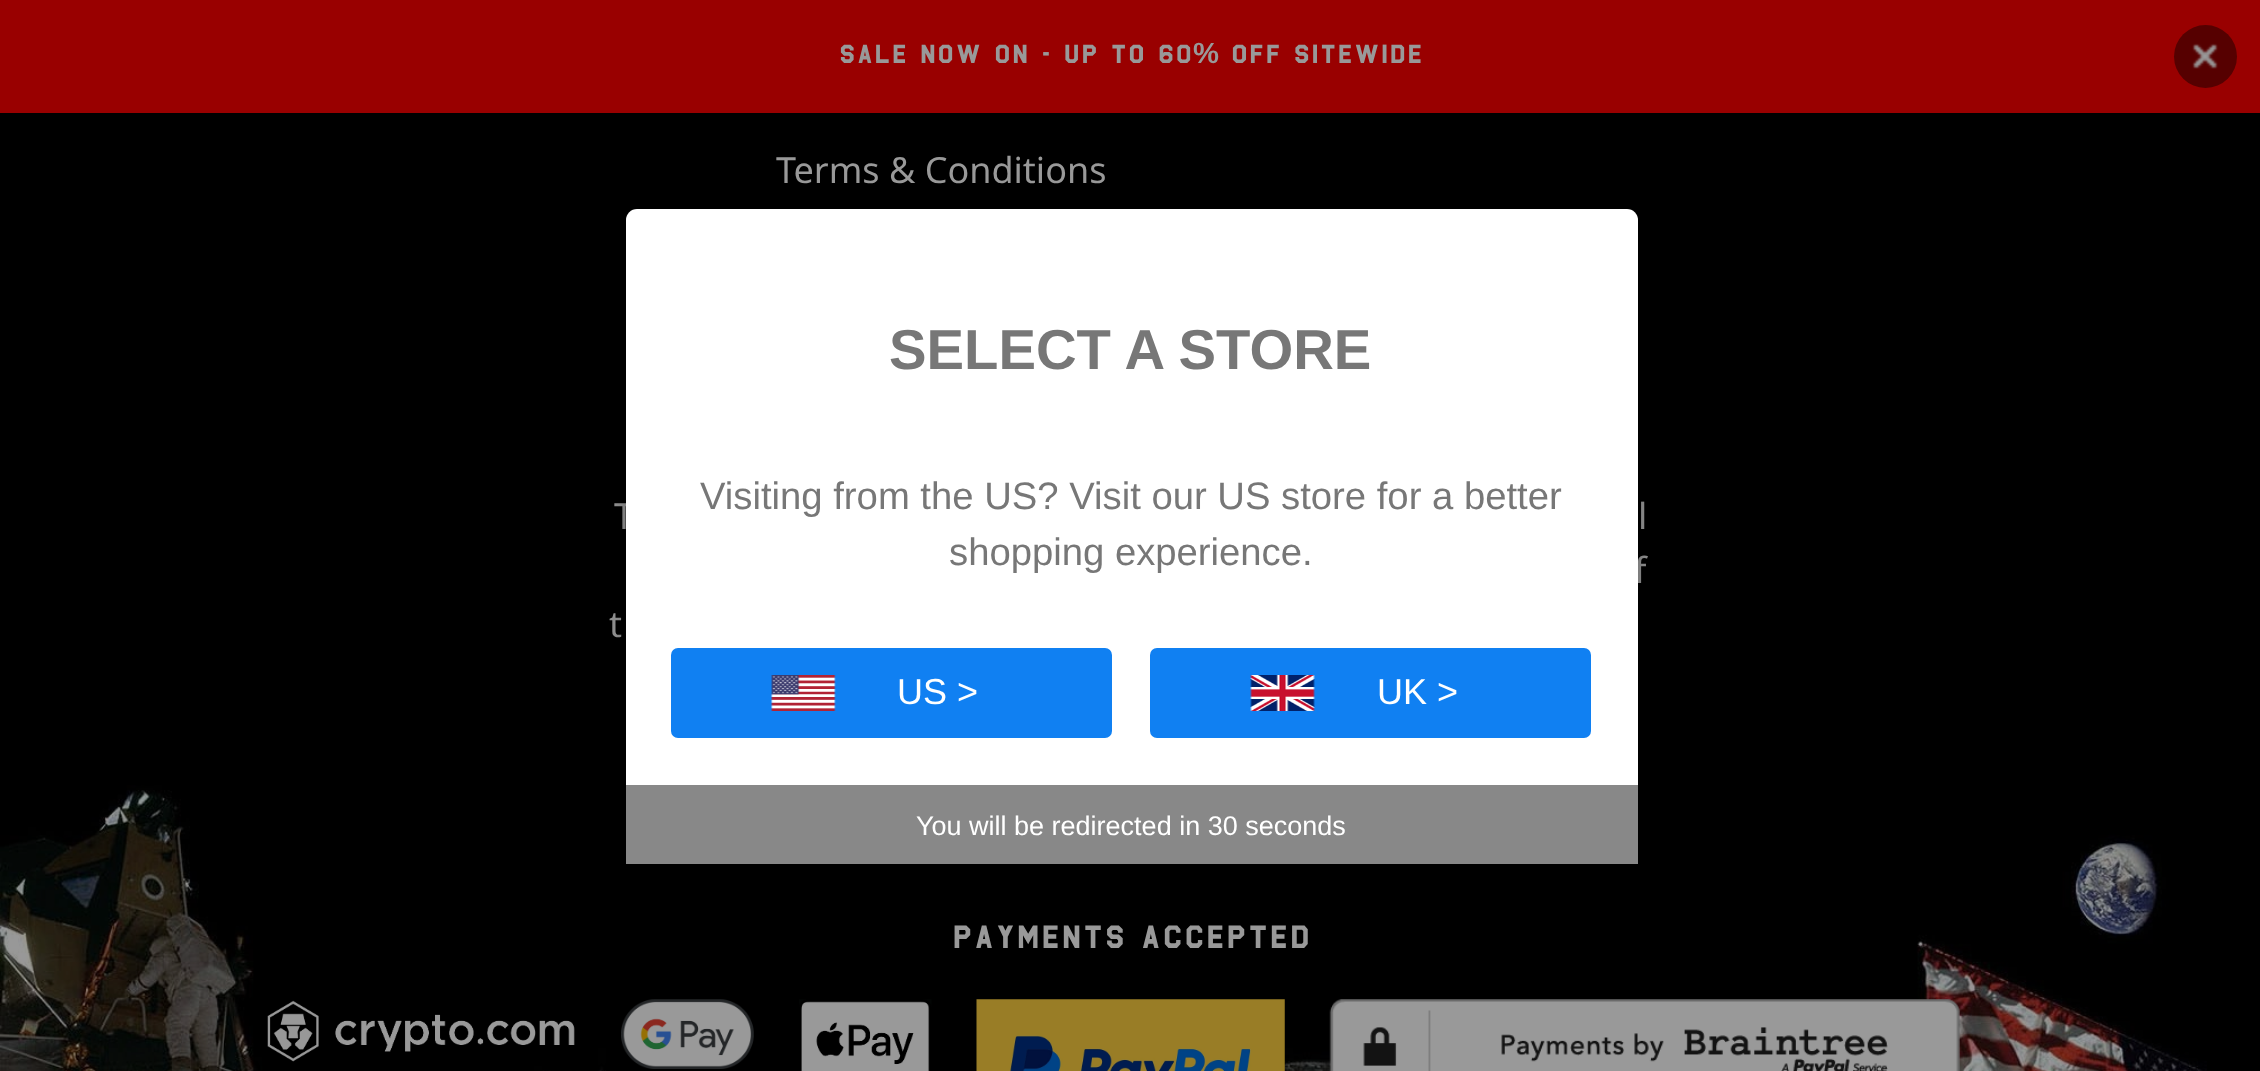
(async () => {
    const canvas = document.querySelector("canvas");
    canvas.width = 2260;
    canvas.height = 1071;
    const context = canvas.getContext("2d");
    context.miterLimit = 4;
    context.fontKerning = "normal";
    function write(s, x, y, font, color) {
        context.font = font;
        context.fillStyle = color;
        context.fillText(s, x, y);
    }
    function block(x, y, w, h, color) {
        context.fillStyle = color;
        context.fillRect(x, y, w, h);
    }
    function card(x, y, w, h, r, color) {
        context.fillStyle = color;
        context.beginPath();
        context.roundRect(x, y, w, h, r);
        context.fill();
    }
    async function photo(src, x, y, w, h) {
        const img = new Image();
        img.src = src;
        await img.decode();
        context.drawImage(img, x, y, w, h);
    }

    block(0, 0, 2260, 1071, "rgb(0, 0, 0)");
    block(0, 0, 2260, 113, "rgb(153, 0, 0)");
    write("SALE NOW ON - Up to 60", 838, 63, "bold 29.25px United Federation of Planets", "rgb(153, 153, 153)");
    write("%", 1193, 63, "bold 29.25px Liberation Sans", "rgb(153, 153, 153)");
    write("off sitewide", 1230, 63, "bold 29.25px United Federation of Planets", "rgb(153, 153, 153)");
    context.fillStyle = "rgb(86, 0, 0)";
    context.beginPath();
    context.arc(2205.5, 56.5, 31.5, 0, Math.PI * 2);
    context.fill();
    await photo("media/1.png", 2192, 43, 26, 26);
    await photo("media/2.png", 0, 785, 2207, 286);
    write("Terms & Conditions", 776, 183, "36px Noto Sans", "rgb(153, 153, 153)");
    write("T", 614, 529, "36px Noto Sans", "rgb(153, 153, 153)");
    write("l", 1638, 529, "36px Noto Sans", "rgb(153, 153, 153)");
    write("f", 1634, 583, "36px Noto Sans", "rgb(153, 153, 153)");
    write("t", 609, 637, "36px Noto Sans", "rgb(153, 153, 153)");
    write("PAYMENTS ACCEPTED", 951, 948, "bold 36px United Federation of Planets", "rgb(153, 153, 153)");
    await photo("media/3.png", 267, 1000, 308, 62);
    await photo("media/4.png", 621, 999, 133, 70);
    await photo("media/5.png", 799, 999, 133, 72);
    await photo("media/6.png", 976, 999, 309, 72);
    await photo("media/7.png", 1329, 999, 631, 72);
    context.fillStyle = "rgba(0, 0, 0, 0.19)";
    context.filter = "blur(22.5px)";
    context.beginPath();
    context.roundRect(626, 223, 1012, 652, 11);
    context.fill();
    context.filter = "none";
    context.fillStyle = "rgba(0, 0, 0, 0.2)";
    context.filter = "blur(9px)";
    context.beginPath();
    context.roundRect(626, 218, 1012, 653, 11);
    context.fill();
    context.filter = "none";
    card(626, 209, 1012, 653, 11, "rgb(255, 255, 255)");
    write("SELECT A STORE", 889, 369, "bold 56.25px Liberation Sans", "rgb(119, 119, 119)");
    write("Visiting from the US? Visit our US store for a better", 700, 509, "38.25px Liberation Sans", "rgb(119, 119, 119)");
    write("shopping experience.", 949, 565, "38.25px Liberation Sans", "rgb(119, 119, 119)");
    card(671, 648, 441, 90, 7, "rgb(16, 128, 242)");
    await photo("media/8.png", 771, 675, 65, 36);
    write("US >", 897, 704, "36px Liberation Sans", "rgb(255, 255, 255)");
    card(1150, 648, 441, 90, 7, "rgb(16, 128, 242)");
    await photo("media/9.png", 1250, 675, 65, 36);
    write("UK >", 1377, 704, "36px Liberation Sans", "rgb(255, 255, 255)");
    block(626, 785, 1012, 79, "rgb(136, 136, 136)");
    write("You will be redirected in 30 seconds", 916, 835, "27px Liberation Sans", "rgb(255, 255, 255)");
})();
